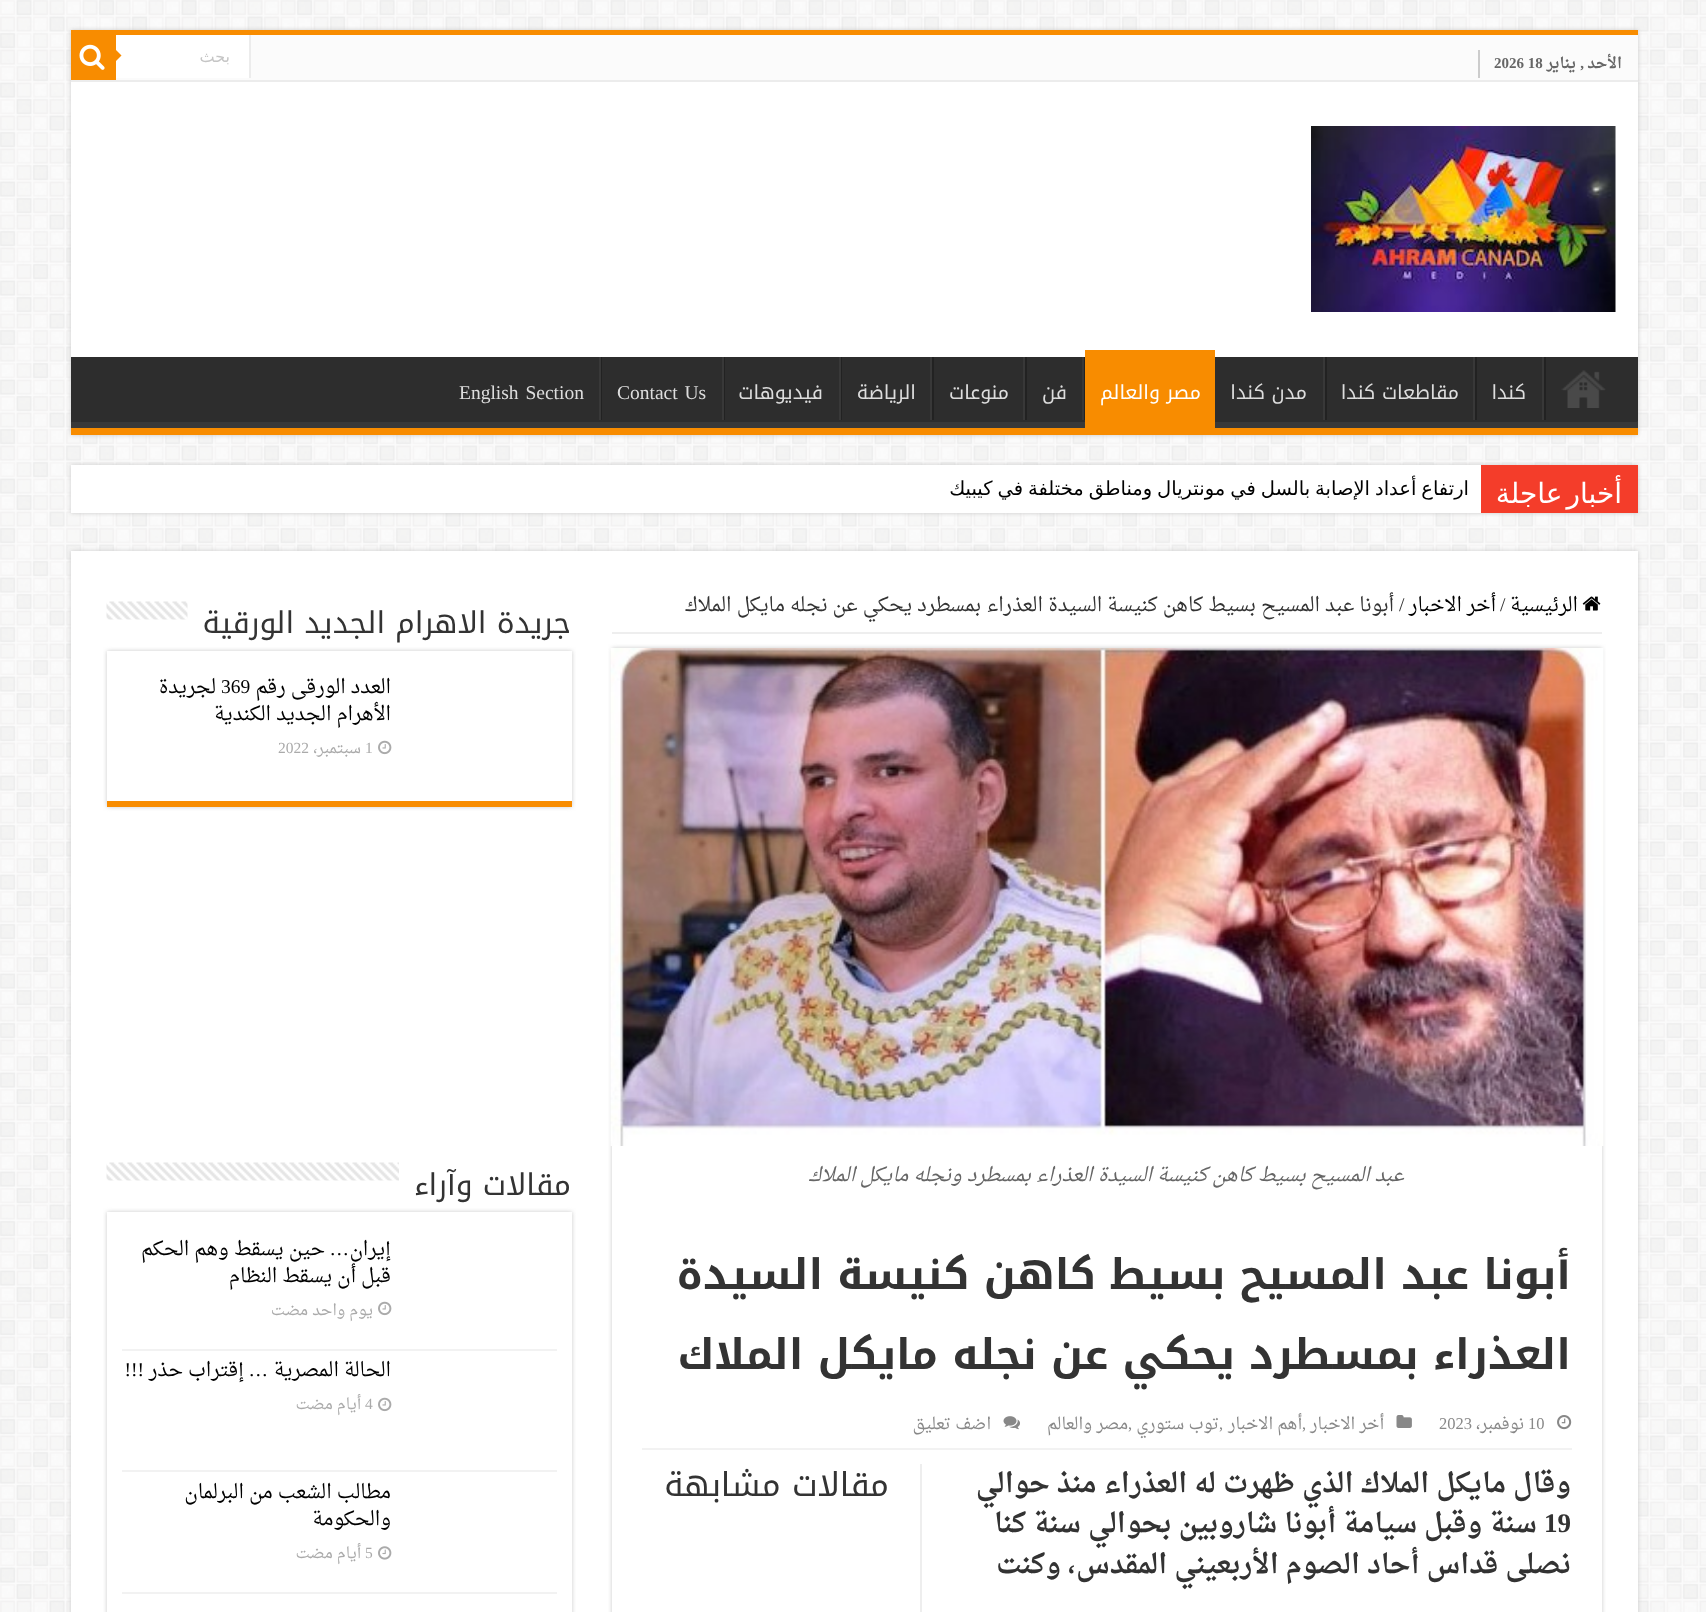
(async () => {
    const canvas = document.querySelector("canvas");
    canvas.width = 1706;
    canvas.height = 1612;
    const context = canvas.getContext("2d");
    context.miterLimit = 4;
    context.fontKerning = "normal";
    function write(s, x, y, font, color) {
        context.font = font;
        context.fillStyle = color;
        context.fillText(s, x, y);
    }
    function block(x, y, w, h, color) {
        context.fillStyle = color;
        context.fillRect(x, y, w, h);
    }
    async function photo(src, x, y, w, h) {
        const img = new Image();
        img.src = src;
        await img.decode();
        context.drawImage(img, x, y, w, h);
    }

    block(0, 0, 1706, 1612, "rgb(255, 255, 255)");
    await photo("media/1.png", 0, 0, 1706, 1612);
    context.fillStyle = "rgb(202, 202, 202)";
    context.filter = "blur(2px)";
    context.beginPath();
    context.rect(71, 30, 1567, 405);
    context.fill();
    context.filter = "none";
    block(71, 82, 1567, 275, "rgb(255, 255, 255)");
    block(71, 30, 1567, 5, "rgb(248, 140, 0)");
    block(116, 35, 1522, 45, "rgb(251, 251, 251)");
    block(71, 80, 1567, 2, "rgb(236, 236, 236)");
    block(1478, 50, 2, 28, "rgb(204, 204, 204)");
    context.direction = "rtl";
    write("الأحد", 1622, 68, "bold 15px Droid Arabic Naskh", "rgb(102, 102, 102)");
    write(",", 1584, 68, "bold 15px Liberation Serif", "rgb(102, 102, 102)");
    write("يناير", 1576, 68, "bold 15px Droid Arabic Naskh", "rgb(102, 102, 102)");
    context.direction = "ltr";
    write("2026 18", 1494, 68, "bold 15px Liberation Serif", "rgb(102, 102, 102)");
    block(116, 35, 133, 43, "rgb(255, 255, 255)");
    block(249, 35, 2, 43, "rgb(236, 236, 236)");
    context.direction = "rtl";
    write("بحث", 230, 62, "16px DejaVu Sans", "rgb(197, 197, 197)");
    block(71, 35, 45, 45, "rgb(248, 140, 0)");
    await photo("media/2.png", 79, 44, 26, 26);
    context.beginPath();
    context.moveTo(115.5, 61.5);
    context.lineTo(115.5, 49.5);
    context.lineTo(121.5, 55.5);
    context.closePath();
    context.fill();
    await photo("media/3.png", 1311, 126, 305, 186);
    block(71, 357, 1567, 65, "rgb(45, 45, 45)");
    context.save();
    context.beginPath();
    context.rect(71, 357, 1567, 71);
    context.clip();
    context.fillStyle = "rgb(57, 57, 57)";
    context.beginPath();
    context.moveTo(-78, 208);
    context.lineTo(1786, 208);
    context.lineTo(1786, 576);
    context.lineTo(-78, 576);
    context.closePath();
    context.moveTo(69, 348);
    context.lineTo(1636, 348);
    context.bezierCurveTo(1637, 348, 1638, 349, 1638, 350);
    context.lineTo(1638, 420);
    context.bezierCurveTo(1638, 421, 1637, 422, 1636, 422);
    context.lineTo(69, 422);
    context.bezierCurveTo(68, 422, 68, 421, 68, 420);
    context.lineTo(68, 350);
    context.bezierCurveTo(68, 349, 68, 348, 69, 348);
    context.closePath();
    context.fill("evenodd");
    context.restore();
    block(71, 428, 1567, 7, "rgb(248, 140, 0)");
    await photo("media/4.png", 1561, 370, 45, 38);
    block(1544, 357, 2, 63, "rgb(34, 34, 34)");
    block(1542, 357, 2, 63, "rgb(56, 56, 56)");
    write("كندا", 1526, 399, "19.5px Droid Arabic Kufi", "rgb(221, 221, 221)");
    block(1475, 357, 2, 63, "rgb(34, 34, 34)");
    block(1473, 357, 2, 63, "rgb(56, 56, 56)");
    write("مقاطعات كندا", 1459, 399, "19.5px Droid Arabic Kufi", "rgb(221, 221, 221)");
    block(1325, 357, 2, 63, "rgb(34, 34, 34)");
    block(1323, 357, 2, 63, "rgb(56, 56, 56)");
    write("مدن كندا", 1307, 399, "19.5px Droid Arabic Kufi", "rgb(221, 221, 221)");
    block(1085, 350, 130, 78, "rgb(248, 140, 0)");
    write("مصر والعالم", 1201, 399, "19.5px Droid Arabic Kufi", "rgb(255, 255, 255)");
    block(1084, 357, 1, 63, "rgb(34, 34, 34)");
    block(1082, 357, 2, 63, "rgb(56, 56, 56)");
    write("فن", 1067, 399, "19.5px Droid Arabic Kufi", "rgb(221, 221, 221)");
    block(1025, 357, 2, 63, "rgb(34, 34, 34)");
    block(1023, 357, 2, 63, "rgb(56, 56, 56)");
    write("منوعات", 1009, 399, "19.5px Droid Arabic Kufi", "rgb(221, 221, 221)");
    block(932, 357, 2, 63, "rgb(34, 34, 34)");
    block(930, 357, 2, 63, "rgb(56, 56, 56)");
    write("الرياضة", 916, 399, "19.5px Droid Arabic Kufi", "rgb(221, 221, 221)");
    block(841, 357, 1, 63, "rgb(34, 34, 34)");
    block(839, 357, 2, 63, "rgb(56, 56, 56)");
    write("فيديوهات", 823, 399, "19.5px Droid Arabic Kufi", "rgb(221, 221, 221)");
    block(724, 357, 1, 63, "rgb(34, 34, 34)");
    block(722, 357, 2, 63, "rgb(56, 56, 56)");
    context.wordSpacing = "2px";
    context.direction = "ltr";
    write("Contact Us", 617, 399, "19.5px Liberation Serif", "rgb(221, 221, 221)");
    block(601, 357, 1, 63, "rgb(34, 34, 34)");
    block(599, 357, 2, 63, "rgb(56, 56, 56)");
    write("English Section", 459, 399, "19.5px Liberation Serif", "rgb(221, 221, 221)");
    context.fillStyle = "rgb(202, 202, 202)";
    context.filter = "blur(2px)";
    context.beginPath();
    context.rect(71, 465, 1567, 48);
    context.fill();
    context.filter = "none";
    block(71, 465, 1410, 48, "rgb(255, 255, 255)");
    block(1481, 465, 157, 48, "rgb(244, 61, 42)");
    context.wordSpacing = "-5px";
    context.direction = "rtl";
    write("أخبار عاجلة", 1622, 503, "28px DejaVu Sans", "rgb(255, 255, 255)");
    context.wordSpacing = "-1.25px";
    write("ارتفاع أعداد الإصابة بالسل في مونتريال ومناطق مختلفة في كيبيك", 1469, 495, "19.5px DejaVu Sans", "rgb(0, 0, 0)");
    context.fillStyle = "rgb(202, 202, 202)";
    context.filter = "blur(2px)";
    context.beginPath();
    context.rect(71, 551, 1567, 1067);
    context.fill();
    context.filter = "none";
    block(71, 551, 1567, 1061, "rgb(255, 255, 255)");
    block(612, 632, 990, 2, "rgb(238, 238, 238)");
    await photo("media/5.png", 1582, 596, 19, 15);
    context.wordSpacing = "0px";
    write("الرئيسية", 1578, 611, "19.5px Droid Arabic Naskh", "rgb(0, 0, 0)");
    context.direction = "ltr";
    write("/", 1500, 611, "19.5px Liberation Serif", "rgb(51, 51, 51)");
    context.direction = "rtl";
    write("أخر الاخبار", 1496, 611, "19.5px Droid Arabic Naskh", "rgb(0, 0, 0)");
    context.direction = "ltr";
    write("/", 1399, 611, "19.5px Liberation Serif", "rgb(51, 51, 51)");
    context.direction = "rtl";
    write("أبونا عبد المسيح بسيط كاهن كنيسة السيدة العذراء بمسطرد يحكي عن نجله مايكل الملاك", 1394, 611, "19.5px Droid Arabic Naskh", "rgb(51, 51, 51)");
    context.save();
    context.beginPath();
    context.moveTo(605, 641);
    context.lineTo(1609, 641);
    context.lineTo(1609, 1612);
    context.lineTo(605, 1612);
    context.closePath();
    context.moveTo(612, 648);
    context.lineTo(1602, 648);
    context.lineTo(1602, 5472);
    context.lineTo(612, 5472);
    context.closePath();
    context.clip("evenodd");
    context.fillStyle = "rgb(202, 202, 202)";
    context.filter = "blur(2px)";
    context.beginPath();
    context.rect(612, 648, 990, 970);
    context.fill();
    context.filter = "none";
    context.restore();
    await photo("media/6.png", 610, 648, 994, 498);
    write("عبد المسيح بسيط كاهن كنيسة السيدة العذراء بمسطرد ونجله مايكل الملاك", 1404, 1181, "italic 19.5px Droid Arabic Naskh", "rgb(102, 102, 102)");
    write("أبونا عبد المسيح بسيط كاهن كنيسة السيدة", 1571, 1289, "bold 42px Droid Arabic Kufi", "rgb(51, 51, 51)");
    write("العذراء بمسطرد يحكي عن نجله مايكل الملاك", 1571, 1369, "bold 42px Droid Arabic Kufi", "rgb(51, 51, 51)");
    block(642, 1448, 930, 2, "rgb(242, 242, 242)");
    await photo("media/7.png", 1557, 1415, 15, 15);
    context.direction = "ltr";
    write("10", 1528, 1429, "16.5px Liberation Serif", "rgb(136, 136, 136)");
    context.direction = "rtl";
    write("نوفمبر،", 1524, 1429, "16.5px Droid Arabic Naskh", "rgb(136, 136, 136)");
    context.direction = "ltr";
    write("2023", 1439, 1429, "16.5px Liberation Serif", "rgb(136, 136, 136)");
    await photo("media/8.png", 1396, 1415, 16, 13);
    context.direction = "rtl";
    write("أخر الاخبار", 1384, 1429, "16.5px Droid Arabic Naskh", "rgb(136, 136, 136)");
    context.direction = "ltr";
    write(",", 1302, 1429, "16.5px Liberation Serif", "rgb(136, 136, 136)");
    context.direction = "rtl";
    write("أهم الاخبار", 1302, 1429, "16.5px Droid Arabic Naskh", "rgb(136, 136, 136)");
    context.direction = "ltr";
    write(",", 1219, 1429, "16.5px Liberation Serif", "rgb(136, 136, 136)");
    context.direction = "rtl";
    write("توب ستوري", 1219, 1429, "16.5px Droid Arabic Naskh", "rgb(136, 136, 136)");
    context.direction = "ltr";
    write(",", 1128, 1429, "16.5px Liberation Serif", "rgb(136, 136, 136)");
    context.direction = "rtl";
    write("مصر والعالم", 1128, 1429, "16.5px Droid Arabic Naskh", "rgb(136, 136, 136)");
    await photo("media/9.png", 1003, 1416, 17, 14);
    write("اضف تعليق", 991, 1429, "16.5px Droid Arabic Naskh", "rgb(136, 136, 136)");
    write("وقال مايكل الملاك الذي ظهرت له العذراء منذ حوالي", 1571, 1492, "bold 27px Droid Arabic Naskh", "rgb(51, 51, 51)");
    context.direction = "ltr";
    write("19", 1544, 1532, "bold 27px Liberation Serif", "rgb(51, 51, 51)");
    context.direction = "rtl";
    write("سنة وقبل سيامة أبونا شاروبين بحوالي سنة كنا", 1537, 1532, "bold 27px Droid Arabic Naskh", "rgb(51, 51, 51)");
    write("نصلى قداس أحاد الصوم الأربعيني المقدس، وكنت", 1571, 1573, "bold 27px Droid Arabic Naskh", "rgb(51, 51, 51)");
    block(920, 1464, 2, 148, "rgb(238, 238, 238)");
    write("مقالات مشابهة", 889, 1496, "33px Droid Arabic Kufi", "rgb(51, 51, 51)");
    write("جريدة الاهرام الجديد الورقية", 571, 633, "30px Droid Arabic Kufi", "rgb(51, 51, 51)");
    await photo("media/10.png", 106, 601, 82, 19);
    context.fillStyle = "rgb(202, 202, 202)";
    context.filter = "blur(2px)";
    context.beginPath();
    context.rect(107, 651, 465, 156);
    context.fill();
    context.filter = "none";
    block(107, 651, 465, 150, "rgb(255, 255, 255)");
    block(107, 801, 465, 6, "rgb(248, 140, 0)");
    write("العدد الورقى رقم", 391, 693, "19.5px Droid Arabic Naskh", "rgb(0, 0, 0)");
    context.direction = "ltr";
    write("369", 221, 693, "19.5px Liberation Serif", "rgb(0, 0, 0)");
    context.direction = "rtl";
    write("لجريدة", 216, 693, "19.5px Droid Arabic Naskh", "rgb(0, 0, 0)");
    write("الأهرام الجديد الكندية", 391, 720, "19.5px Droid Arabic Naskh", "rgb(0, 0, 0)");
    await photo("media/11.png", 378, 740, 14, 15);
    context.direction = "ltr";
    write("1", 365, 753, "15.5px Liberation Serif", "rgb(170, 170, 170)");
    context.direction = "rtl";
    write("سبتمبر،", 361, 753, "15.5px Droid Arabic Naskh", "rgb(170, 170, 170)");
    context.direction = "ltr";
    write("2022", 278, 753, "15.5px Liberation Serif", "rgb(170, 170, 170)");
    context.direction = "rtl";
    write("مقالات وآراء", 571, 1195, "30px Droid Arabic Kufi", "rgb(51, 51, 51)");
    await photo("media/12.png", 106, 1162, 293, 19);
    context.fillStyle = "rgb(202, 202, 202)";
    context.filter = "blur(2px)";
    context.beginPath();
    context.rect(107, 1212, 465, 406);
    context.fill();
    context.filter = "none";
    block(107, 1212, 465, 400, "rgb(255, 255, 255)");
    block(122, 1349, 435, 2, "rgb(242, 242, 242)");
    write("إيران", 391, 1255, "19.5px Droid Arabic Naskh", "rgb(0, 0, 0)");
    write("…", 349, 1255, "19.5px Liberation Serif", "rgb(0, 0, 0)");
    write("حين يسقط وهم الحكم", 325, 1255, "19.5px Droid Arabic Naskh", "rgb(0, 0, 0)");
    write("قبل أن يسقط النظام", 391, 1282, "19.5px Droid Arabic Naskh", "rgb(0, 0, 0)");
    await photo("media/11.png", 378, 1301, 14, 15);
    write("يوم واحد مضت", 373, 1315, "15.5px Droid Arabic Naskh", "rgb(170, 170, 170)");
    block(122, 1470, 435, 2, "rgb(242, 242, 242)");
    write("الحالة المصرية", 391, 1376, "19.5px Droid Arabic Naskh", "rgb(0, 0, 0)");
    write("…", 268, 1376, "19.5px Liberation Serif", "rgb(0, 0, 0)");
    write("إقتراب حذر", 244, 1376, "19.5px Droid Arabic Naskh", "rgb(0, 0, 0)");
    write("!!!", 144, 1376, "19.5px Liberation Serif", "rgb(0, 0, 0)");
    await photo("media/11.png", 378, 1397, 14, 15);
    context.direction = "ltr";
    write("4", 365, 1409, "15.5px Liberation Serif", "rgb(170, 170, 170)");
    context.direction = "rtl";
    write("أيام مضت", 361, 1409, "15.5px Droid Arabic Naskh", "rgb(170, 170, 170)");
    block(122, 1592, 435, 2, "rgb(242, 242, 242)");
    write("مطالب الشعب من البرلمان", 391, 1498, "19.5px Droid Arabic Naskh", "rgb(0, 0, 0)");
    write("والحكومة", 391, 1525, "19.5px Droid Arabic Naskh", "rgb(0, 0, 0)");
    await photo("media/13.png", 378, 1546, 14, 14);
    context.direction = "ltr";
    write("5", 365, 1558, "15.5px Liberation Serif", "rgb(170, 170, 170)");
    context.direction = "rtl";
    write("أيام مضت", 361, 1558, "15.5px Droid Arabic Naskh", "rgb(170, 170, 170)");
})();
